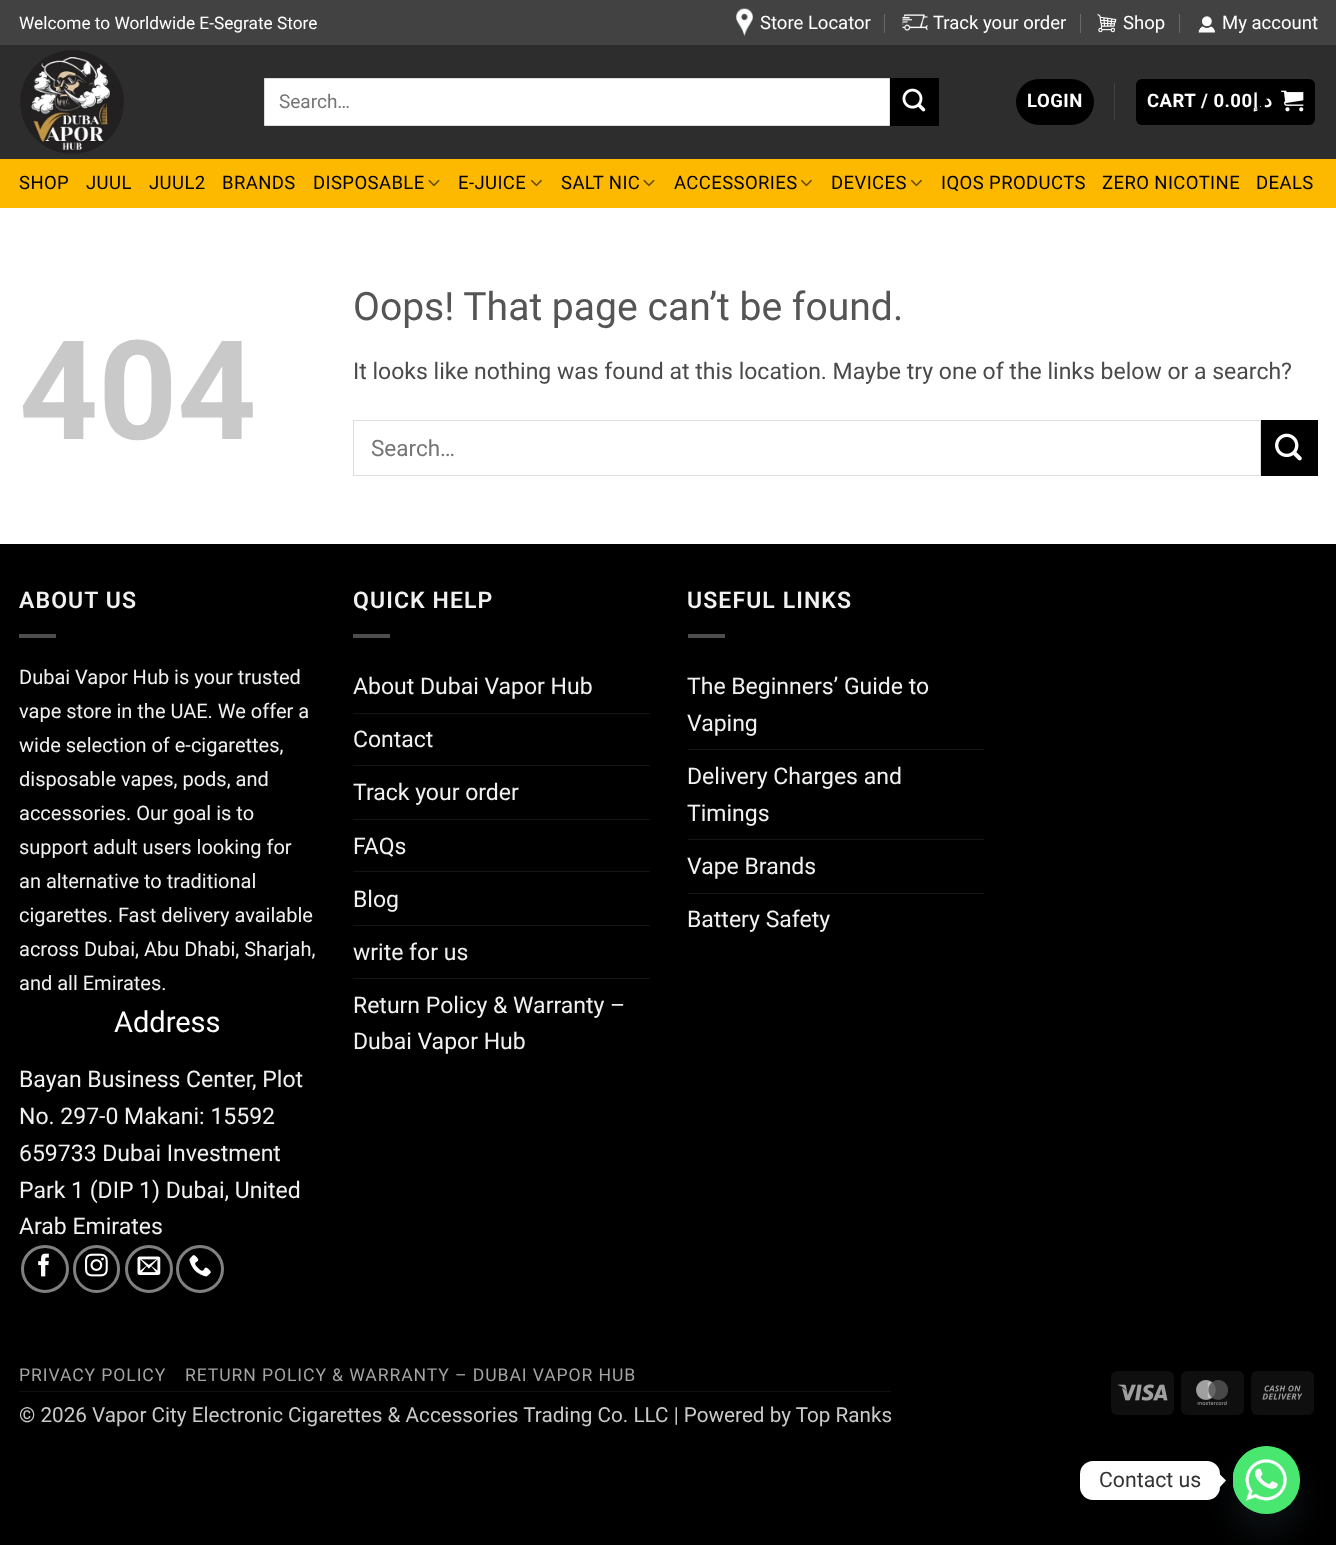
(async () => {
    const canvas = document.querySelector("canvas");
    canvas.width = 1336;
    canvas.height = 1545;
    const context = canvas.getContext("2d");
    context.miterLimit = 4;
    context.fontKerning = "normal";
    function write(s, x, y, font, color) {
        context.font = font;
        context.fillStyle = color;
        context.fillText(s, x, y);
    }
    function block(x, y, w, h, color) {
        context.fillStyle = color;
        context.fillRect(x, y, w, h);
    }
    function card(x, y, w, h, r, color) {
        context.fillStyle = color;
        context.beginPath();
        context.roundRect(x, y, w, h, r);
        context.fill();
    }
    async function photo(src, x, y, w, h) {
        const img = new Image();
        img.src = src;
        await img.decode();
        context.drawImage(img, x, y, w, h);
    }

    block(0, 0, 1336, 1545, "rgb(0, 0, 0)");
    block(0, 208, 1336, 336, "rgb(255, 255, 255)");
    block(0, 0, 1336, 45, "rgb(66, 66, 66)");
    write("Welcome to Worldwide E-Segrate Store", 19, 29, "17.25px Roboto", "rgb(255, 255, 255)");
    await photo("media/1.png", 736, 8, 17, 29);
    write("Store Locator", 760, 29, "18.5px Roboto", "rgb(255, 255, 255)");
    block(884, 14, 1, 19, "rgb(104, 104, 104)");
    await photo("media/2.png", 902, 14, 26, 17);
    write("Track your order", 933, 29, "18.5px Roboto", "rgb(255, 255, 255)");
    block(1080, 14, 1, 19, "rgb(104, 104, 104)");
    await photo("media/3.png", 1097, 13, 20, 20);
    write("Shop", 1123, 29, "18.5px Roboto", "rgb(255, 255, 255)");
    block(1179, 14, 1, 19, "rgb(104, 104, 104)");
    await photo("media/4.png", 1198, 16, 17, 17);
    write("My account", 1222, 29, "18.5px Roboto", "rgb(255, 255, 255)");
    block(0, 45, 1336, 114, "rgb(45, 45, 45)");
    await photo("media/5.png", 20, 50, 104, 104);
    context.fillStyle = "rgb(255, 255, 255)";
    context.beginPath();
    context.rect(264.5, 78.5, 625, 47);
    context.fill();
    context.strokeStyle = "rgb(221, 221, 221)";
    context.stroke();
    write("Search…", 279, 108, "19px Roboto", "rgb(117, 117, 117)");
    block(890, 78, 49, 48, "rgb(0, 0, 0)");
    await photo("media/6.png", 902, 88, 24, 24);
    card(1016, 79, 78, 46, 23, "rgb(0, 0, 0)");
    context.letterSpacing = "0.5px";
    write("LOGIN", 1027, 107, "bold 18.5px Roboto", "rgb(255, 255, 255)");
    block(1114, 83, 1, 37, "rgb(66, 66, 66)");
    card(1136, 79, 179, 46, 6, "rgb(0, 0, 0)");
    write("CART / 0.00", 1147, 107, "bold 18.5px Roboto", "rgb(255, 255, 255)");
    context.direction = "rtl";
    write("إ", 1258, 107, "bold 18.5px DejaVu Sans", "rgb(255, 255, 255)");
    write(".", 1263, 107, "100 18.5px Roboto", "rgb(255, 255, 255)");
    write("د", 1272, 107, "bold 18.5px DejaVu Sans", "rgb(255, 255, 255)");
    await photo("media/7.png", 1281, 90, 23, 22);
    block(0, 159, 1336, 49, "rgb(252, 185, 0)");
    context.letterSpacing = "0.4px";
    context.direction = "ltr";
    write("SHOP", 19, 189, "18.5px Roboto", "rgb(0, 0, 0)");
    write("JUUL", 86, 189, "18.5px Roboto", "rgb(0, 0, 0)");
    write("JUUL2", 149, 189, "18.5px Roboto", "rgb(0, 0, 0)");
    write("BRANDS", 222, 189, "18.5px Roboto", "rgb(0, 0, 0)");
    write("DISPOSABLE", 313, 189, "18.5px Roboto", "rgb(0, 0, 0)");
    await photo("media/8.png", 428, 179, 12, 8);
    write("E-JUICE", 458, 189, "18.5px Roboto", "rgb(0, 0, 0)");
    await photo("media/9.png", 530, 179, 12, 8);
    write("SALT NIC", 561, 189, "18.5px Roboto", "rgb(0, 0, 0)");
    await photo("media/8.png", 643, 179, 12, 8);
    write("ACCESSORIES", 674, 189, "18.5px Roboto", "rgb(0, 0, 0)");
    await photo("media/9.png", 800, 179, 12, 8);
    write("DEVICES", 831, 189, "18.5px Roboto", "rgb(0, 0, 0)");
    await photo("media/9.png", 910, 179, 12, 8);
    write("IQOS PRODUCTS", 941, 189, "18.5px Roboto", "rgb(0, 0, 0)");
    write("ZERO NICOTINE", 1102, 189, "18.5px Roboto", "rgb(0, 0, 0)");
    write("DEALS", 1256, 189, "18.5px Roboto", "rgb(0, 0, 0)");
    context.letterSpacing = "0px";
    write("404", 19, 439, "bold 138px Roboto", "rgb(201, 201, 201)");
    write("Oops! That page can’t be found.", 353, 320, "39.1px Roboto", "rgb(85, 85, 85)");
    write("It looks like nothing was found at this location. Maybe try one of the links below or a search?", 353, 379, "23px Roboto", "rgb(74, 74, 74)");
    context.strokeRect(353.5, 420.5, 907, 55);
    write("Search…", 371, 456, "22.5px Roboto", "rgb(117, 117, 117)");
    block(1261, 420, 57, 56, "rgb(0, 0, 0)");
    await photo("media/10.png", 1275, 433, 27, 28);
    context.letterSpacing = "1.1px";
    write("ABOUT US", 19, 608, "600 23px Roboto", "rgb(241, 241, 241)");
    block(19, 634, 37, 4, "rgb(77, 77, 77)");
    context.letterSpacing = "0px";
    write("Dubai Vapor Hub is your trusted", 19, 684, "20px Roboto", "rgb(241, 241, 241)");
    write("vape store in the UAE. We offer a", 19, 718, "20px Roboto", "rgb(241, 241, 241)");
    write("wide selection of e-cigarettes,", 19, 752, "20px Roboto", "rgb(241, 241, 241)");
    write("disposable vapes, pods, and", 19, 786, "20px Roboto", "rgb(241, 241, 241)");
    write("accessories. Our goal is to", 19, 820, "20px Roboto", "rgb(241, 241, 241)");
    write("support adult users looking for", 19, 854, "20px Roboto", "rgb(241, 241, 241)");
    write("an alternative to traditional", 19, 888, "20px Roboto", "rgb(241, 241, 241)");
    write("cigarettes. Fast delivery available", 19, 922, "20px Roboto", "rgb(241, 241, 241)");
    write("across Dubai, Abu Dhabi, Sharjah,", 19, 956, "20px Roboto", "rgb(241, 241, 241)");
    write("and all Emirates.", 19, 990, "20px Roboto", "rgb(241, 241, 241)");
    write("Address", 114, 1032, "29px Roboto", "rgb(255, 255, 255)");
    write("Bayan Business Center, Plot", 19, 1087, "23px Roboto", "rgb(241, 241, 241)");
    write("No. 297-0 Makani: 15592", 19, 1124, "23px Roboto", "rgb(241, 241, 241)");
    write("659733 Dubai Investment", 19, 1161, "23px Roboto", "rgb(241, 241, 241)");
    write("Park 1 (DIP 1) Dubai, United", 19, 1198, "23px Roboto", "rgb(241, 241, 241)");
    write("Arab Emirates", 19, 1234, "23px Roboto", "rgb(241, 241, 241)");
    context.beginPath();
    context.arc(45, 1269, 22.5, 0, Math.PI * 2);
    context.strokeStyle = "rgb(128, 128, 128)";
    context.lineWidth = 3;
    context.stroke();
    await photo("media/11.png", 38, 1253, 11, 24);
    context.beginPath();
    context.roundRect(74.5, 1246.5, 44, 45, 22);
    context.stroke();
    await photo("media/12.png", 85, 1253, 23, 24);
    context.beginPath();
    context.arc(149, 1269, 22.5, 0, Math.PI * 2);
    context.stroke();
    await photo("media/13.png", 137, 1256, 24, 19);
    context.beginPath();
    context.arc(200, 1269, 22.5, 0, Math.PI * 2);
    context.stroke();
    await photo("media/14.png", 189, 1255, 22, 22);
    context.letterSpacing = "1.1px";
    write("QUICK HELP", 353, 608, "600 23px Roboto", "rgb(241, 241, 241)");
    block(353, 634, 37, 4, "rgb(77, 77, 77)");
    context.letterSpacing = "0px";
    write("About Dubai Vapor Hub", 353, 694, "23px Roboto", "rgb(241, 241, 241)");
    block(353, 713, 297, 1, "rgb(20, 20, 20)");
    write("Contact", 353, 747, "23px Roboto", "rgb(241, 241, 241)");
    block(353, 765, 297, 1, "rgb(20, 20, 20)");
    write("Track your order", 353, 800, "23px Roboto", "rgb(241, 241, 241)");
    block(353, 819, 297, 1, "rgb(20, 20, 20)");
    write("FAQs", 353, 854, "23px Roboto", "rgb(241, 241, 241)");
    block(353, 871, 297, 1, "rgb(20, 20, 20)");
    write("Blog", 353, 907, "23px Roboto", "rgb(241, 241, 241)");
    block(353, 925, 297, 1, "rgb(20, 20, 20)");
    write("write for us", 353, 960, "23px Roboto", "rgb(241, 241, 241)");
    block(353, 978, 297, 1, "rgb(20, 20, 20)");
    write("Return Policy & Warranty –", 353, 1013, "23px Roboto", "rgb(241, 241, 241)");
    write("Dubai Vapor Hub", 353, 1049, "23px Roboto", "rgb(241, 241, 241)");
    context.letterSpacing = "1.1px";
    write("USEFUL LINKS", 687, 608, "600 23px Roboto", "rgb(241, 241, 241)");
    block(688, 634, 37, 4, "rgb(77, 77, 77)");
    context.letterSpacing = "0px";
    write("The Beginners’ Guide to", 687, 694, "23px Roboto", "rgb(241, 241, 241)");
    write("Vaping", 687, 731, "23px Roboto", "rgb(241, 241, 241)");
    block(688, 749, 296, 1, "rgb(20, 20, 20)");
    write("Delivery Charges and", 687, 784, "23px Roboto", "rgb(241, 241, 241)");
    write("Timings", 687, 821, "23px Roboto", "rgb(241, 241, 241)");
    block(688, 839, 296, 1, "rgb(20, 20, 20)");
    write("Vape Brands", 687, 874, "23px Roboto", "rgb(241, 241, 241)");
    block(688, 893, 296, 1, "rgb(20, 20, 20)");
    write("Battery Safety", 687, 927, "23px Roboto", "rgb(241, 241, 241)");
    block(19, 1391, 872, 1, "rgb(16, 16, 16)");
    context.letterSpacing = "0.9px";
    write("PRIVACY POLICY", 19, 1381, "17.6px Roboto", "rgb(163, 163, 163)");
    write("RETURN POLICY & WARRANTY – DUBAI VAPOR HUB", 185, 1381, "17.6px Roboto", "rgb(163, 163, 163)");
    context.letterSpacing = "0px";
    write("© 2026 Vapor City Electronic Cigarettes & Accessories Trading Co. LLC | Powered by Top Ranks", 19, 1422, "20.7px Roboto", "rgb(201, 201, 201)");
    card(1111, 1371, 63, 44, 6, "rgb(15, 15, 15)");
    await photo("media/15.png", 1118, 1384, 50, 17);
    card(1181, 1371, 63, 44, 6, "rgb(15, 15, 15)");
    await photo("media/16.png", 1196, 1380, 32, 25);
    card(1251, 1371, 63, 44, 6, "rgb(15, 15, 15)");
    await photo("media/17.png", 1262, 1385, 41, 15);
    context.fillStyle = "rgba(73, 104, 126, 0.16)";
    context.filter = "blur(15px)";
    context.beginPath();
    context.roundRect(1233, 1466, 67, 68, 33.5);
    context.fill();
    context.filter = "none";
    card(1080, 1461, 140, 39, 13, "rgb(255, 255, 255)");
    write("Contact us", 1099, 1487, "21.25px Roboto", "rgb(51, 51, 51)");
    context.fillStyle = "rgb(255, 255, 255)";
    context.beginPath();
    context.moveTo(1220, 1487);
    context.lineTo(1220, 1474.5);
    context.lineTo(1226, 1480.5);
    context.closePath();
    context.fill();
    card(1233, 1446, 67, 68, 33.5, "rgb(73, 230, 112)");
    await photo("media/18.png", 1233, 1446, 67, 68);
})();
